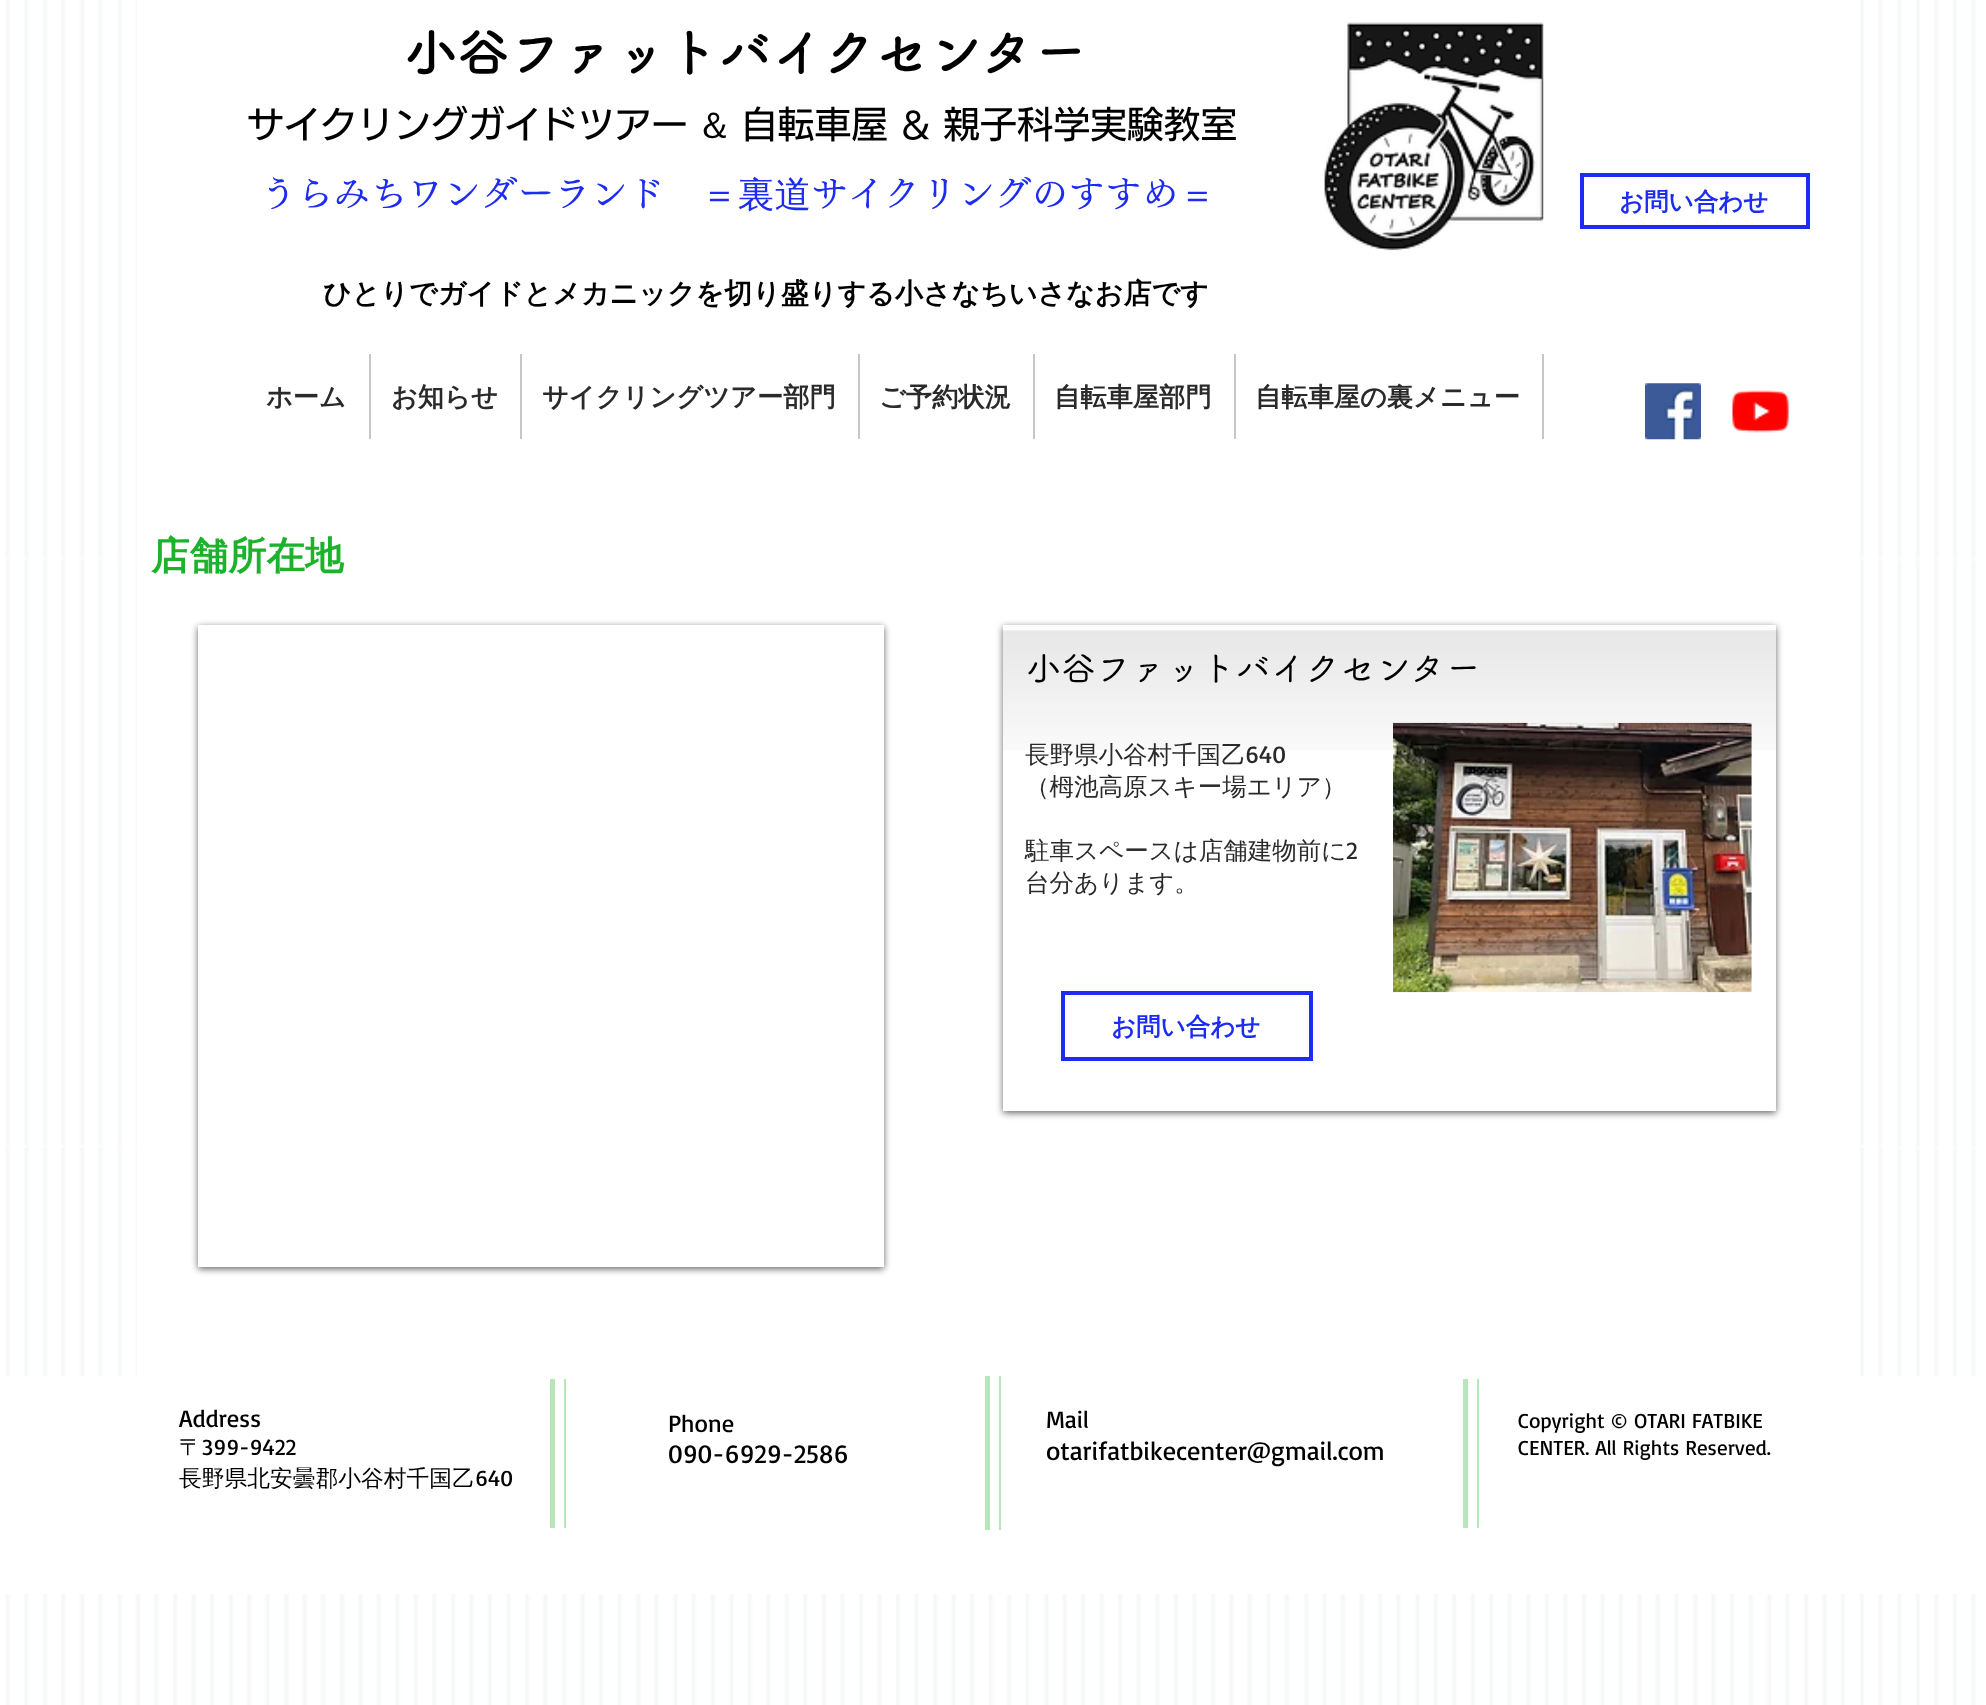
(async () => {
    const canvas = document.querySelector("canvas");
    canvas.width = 1986;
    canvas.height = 1705;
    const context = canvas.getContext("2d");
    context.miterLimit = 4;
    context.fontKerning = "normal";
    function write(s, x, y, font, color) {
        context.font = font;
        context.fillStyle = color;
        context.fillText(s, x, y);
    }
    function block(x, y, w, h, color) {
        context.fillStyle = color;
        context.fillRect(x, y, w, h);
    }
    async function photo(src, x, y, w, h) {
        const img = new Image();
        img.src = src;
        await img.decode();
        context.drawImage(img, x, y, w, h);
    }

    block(0, 0, 1986, 1705, "rgb(255, 255, 255)");
    await photo("media/1.png", 5, 0, 1971, 1705);
    block(137, 0, 1709, 1376, "rgb(255, 255, 255)");
    write("小谷ファットバイクセンター", 404, 72, "bold 52.5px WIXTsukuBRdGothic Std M", "rgb(0, 0, 0)");
    write("サイクリングガイドツアー", 247, 138, "500 36.75px 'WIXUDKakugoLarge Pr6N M'", "rgb(0, 0, 0)");
    write("＆", 696, 138, "500 36.75px WenQuanYi Zen Hei", "rgb(0, 0, 0)");
    write("自転車屋 ＆ 親子科学実験教室", 741, 138, "500 36.75px 'WIXUDKakugoLarge Pr6N M'", "rgb(0, 0, 0)");
    await photo("media/2.png", 1324, 22, 220, 229);
    write("うらみちワンダーランド", 260, 207, "500 36.75px 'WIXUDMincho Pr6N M'", "rgb(29, 44, 243)");
    write("＝裏道", 701, 207, "500 36.75px WenQuanYi Zen Hei", "rgb(29, 44, 243)");
    write("サイクリングのすすめ", 811, 207, "500 36.75px 'WIXUDMincho Pr6N M'", "rgb(29, 44, 243)");
    write("＝", 1179, 207, "500 36.75px WenQuanYi Zen Hei", "rgb(29, 44, 243)");
    context.strokeStyle = "rgb(29, 44, 243)";
    context.lineWidth = 4;
    context.strokeRect(1582, 175, 226, 52);
    write("お問い合わせ", 1619, 210, "bold 24.5px WenQuanYi Zen Hei", "rgb(29, 44, 243)");
    write("ひとりでガイドとメカニックを切り盛りする小さなちいさなお店です", 323, 303, "bold 28px WenQuanYi Zen Hei", "rgb(0, 0, 0)");
    write("ホーム", 266, 406, "bold 26.25px WenQuanYi Zen Hei", "rgb(42, 42, 42)");
    block(369, 354, 2, 85, "rgb(200, 199, 199)");
    write("お知らせ", 391, 406, "bold 26.25px WenQuanYi Zen Hei", "rgb(42, 42, 42)");
    block(520, 354, 2, 85, "rgb(200, 199, 199)");
    write("サイクリングツアー部門", 542, 406, "bold 26.25px WenQuanYi Zen Hei", "rgb(42, 42, 42)");
    block(858, 354, 2, 85, "rgb(200, 199, 199)");
    write("ご予約状況", 879, 406, "bold 26.25px WenQuanYi Zen Hei", "rgb(42, 42, 42)");
    block(1033, 354, 2, 85, "rgb(200, 199, 199)");
    write("自転車屋部門", 1054, 406, "bold 26.25px WenQuanYi Zen Hei", "rgb(42, 42, 42)");
    block(1234, 354, 2, 85, "rgb(200, 199, 199)");
    write("自転車屋の裏メニュー", 1255, 406, "bold 26.25px WenQuanYi Zen Hei", "rgb(42, 42, 42)");
    block(1542, 354, 2, 85, "rgb(200, 199, 199)");
    await photo("media/3.png", 1645, 383, 56, 57);
    await photo("media/4.png", 1732, 390, 57, 43);
    write("店舗所在地", 151, 569, "bold 38.5px WenQuanYi Zen Hei", "rgb(29, 178, 43)");
    context.fillStyle = "rgba(0, 0, 0, 0.6)";
    context.filter = "blur(3.5px)";
    context.beginPath();
    context.rect(198, 627, 686, 642);
    context.fill();
    context.filter = "none";
    block(198, 625, 686, 642, "rgb(255, 255, 255)");
    context.save();
    context.beginPath();
    context.moveTo(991, 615);
    context.lineTo(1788, 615);
    context.lineTo(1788, 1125);
    context.lineTo(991, 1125);
    context.closePath();
    context.moveTo(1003, 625);
    context.lineTo(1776, 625);
    context.lineTo(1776, 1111);
    context.lineTo(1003, 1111);
    context.closePath();
    context.clip("evenodd");
    context.fillStyle = "rgba(0, 0, 0, 0.6)";
    context.filter = "blur(3.5px)";
    context.beginPath();
    context.rect(1003, 627, 773, 486);
    context.fill();
    context.filter = "none";
    context.restore();
    await photo("media/5.png", 1003, 630, 773, 120);
    write("小谷ファットバイクセンター", 1026, 681, "500 35px WIXTsukuBRdGothic Std M", "rgb(0, 0, 0)");
    write("長野県小谷村千国乙", 1025, 763, "500 24.5px WenQuanYi Zen Hei", "rgb(42, 42, 42)");
    write("640", 1245, 763, "24.5px Basic", "rgb(42, 42, 42)");
    write("（栂池高原スキー場エリア）", 1025, 795, "500 24.5px WenQuanYi Zen Hei", "rgb(42, 42, 42)");
    write("駐車スペースは店舗建物前に", 1025, 859, "500 24.5px WenQuanYi Zen Hei", "rgb(42, 42, 42)");
    write("2", 1346, 859, "24.5px Basic", "rgb(42, 42, 42)");
    write("台分あります。", 1025, 891, "500 24.5px WenQuanYi Zen Hei", "rgb(42, 42, 42)");
    await photo("media/6.png", 1393, 722, 359, 271);
    context.strokeRect(1063, 993, 248, 66);
    write("お問い合わせ", 1111, 1035, "bold 24.5px WenQuanYi Zen Hei", "rgb(29, 44, 243)");
    block(5, 1376, 1971, 218, "rgb(255, 255, 255)");
    write("Address", 179, 1427, "24.5px Basic", "rgb(0, 0, 0)");
    write("〒", 179, 1455, "500 22.75px WenQuanYi Zen Hei", "rgb(0, 0, 0)");
    write("399-9422", 202, 1455, "22.75px Basic", "rgb(0, 0, 0)");
    write("長野県北安曇郡小谷村千国乙", 179, 1486, "500 22.75px WenQuanYi Zen Hei", "rgb(0, 0, 0)");
    write("640", 475, 1486, "22.75px Basic", "rgb(0, 0, 0)");
    block(564, 1379, 2, 149, "rgb(183, 230, 187)");
    block(550, 1379, 5, 149, "rgb(183, 230, 187)");
    write("Phone", 668, 1432, "24.5px Basic", "rgb(0, 0, 0)");
    write("090-6929-2586", 668, 1463, "26.25px Basic", "rgb(0, 0, 0)");
    block(999, 1376, 2, 154, "rgb(183, 230, 187)");
    block(985, 1376, 5, 154, "rgb(183, 230, 187)");
    write("Mail", 1046, 1428, "24.5px Basic", "rgb(0, 0, 0)");
    write("otarifatbikecenter@gmail.com", 1046, 1460, "26.25px Basic", "rgb(0, 0, 0)");
    block(1477, 1379, 2, 149, "rgb(183, 230, 187)");
    block(1463, 1379, 5, 149, "rgb(183, 230, 187)");
    write("Copyright © OTARI FATBIKE", 1518, 1428, "21px Basic", "rgb(0, 0, 0)");
    write("CENTER. All Rights Reserved.", 1518, 1455, "21px Basic", "rgb(0, 0, 0)");
})();
